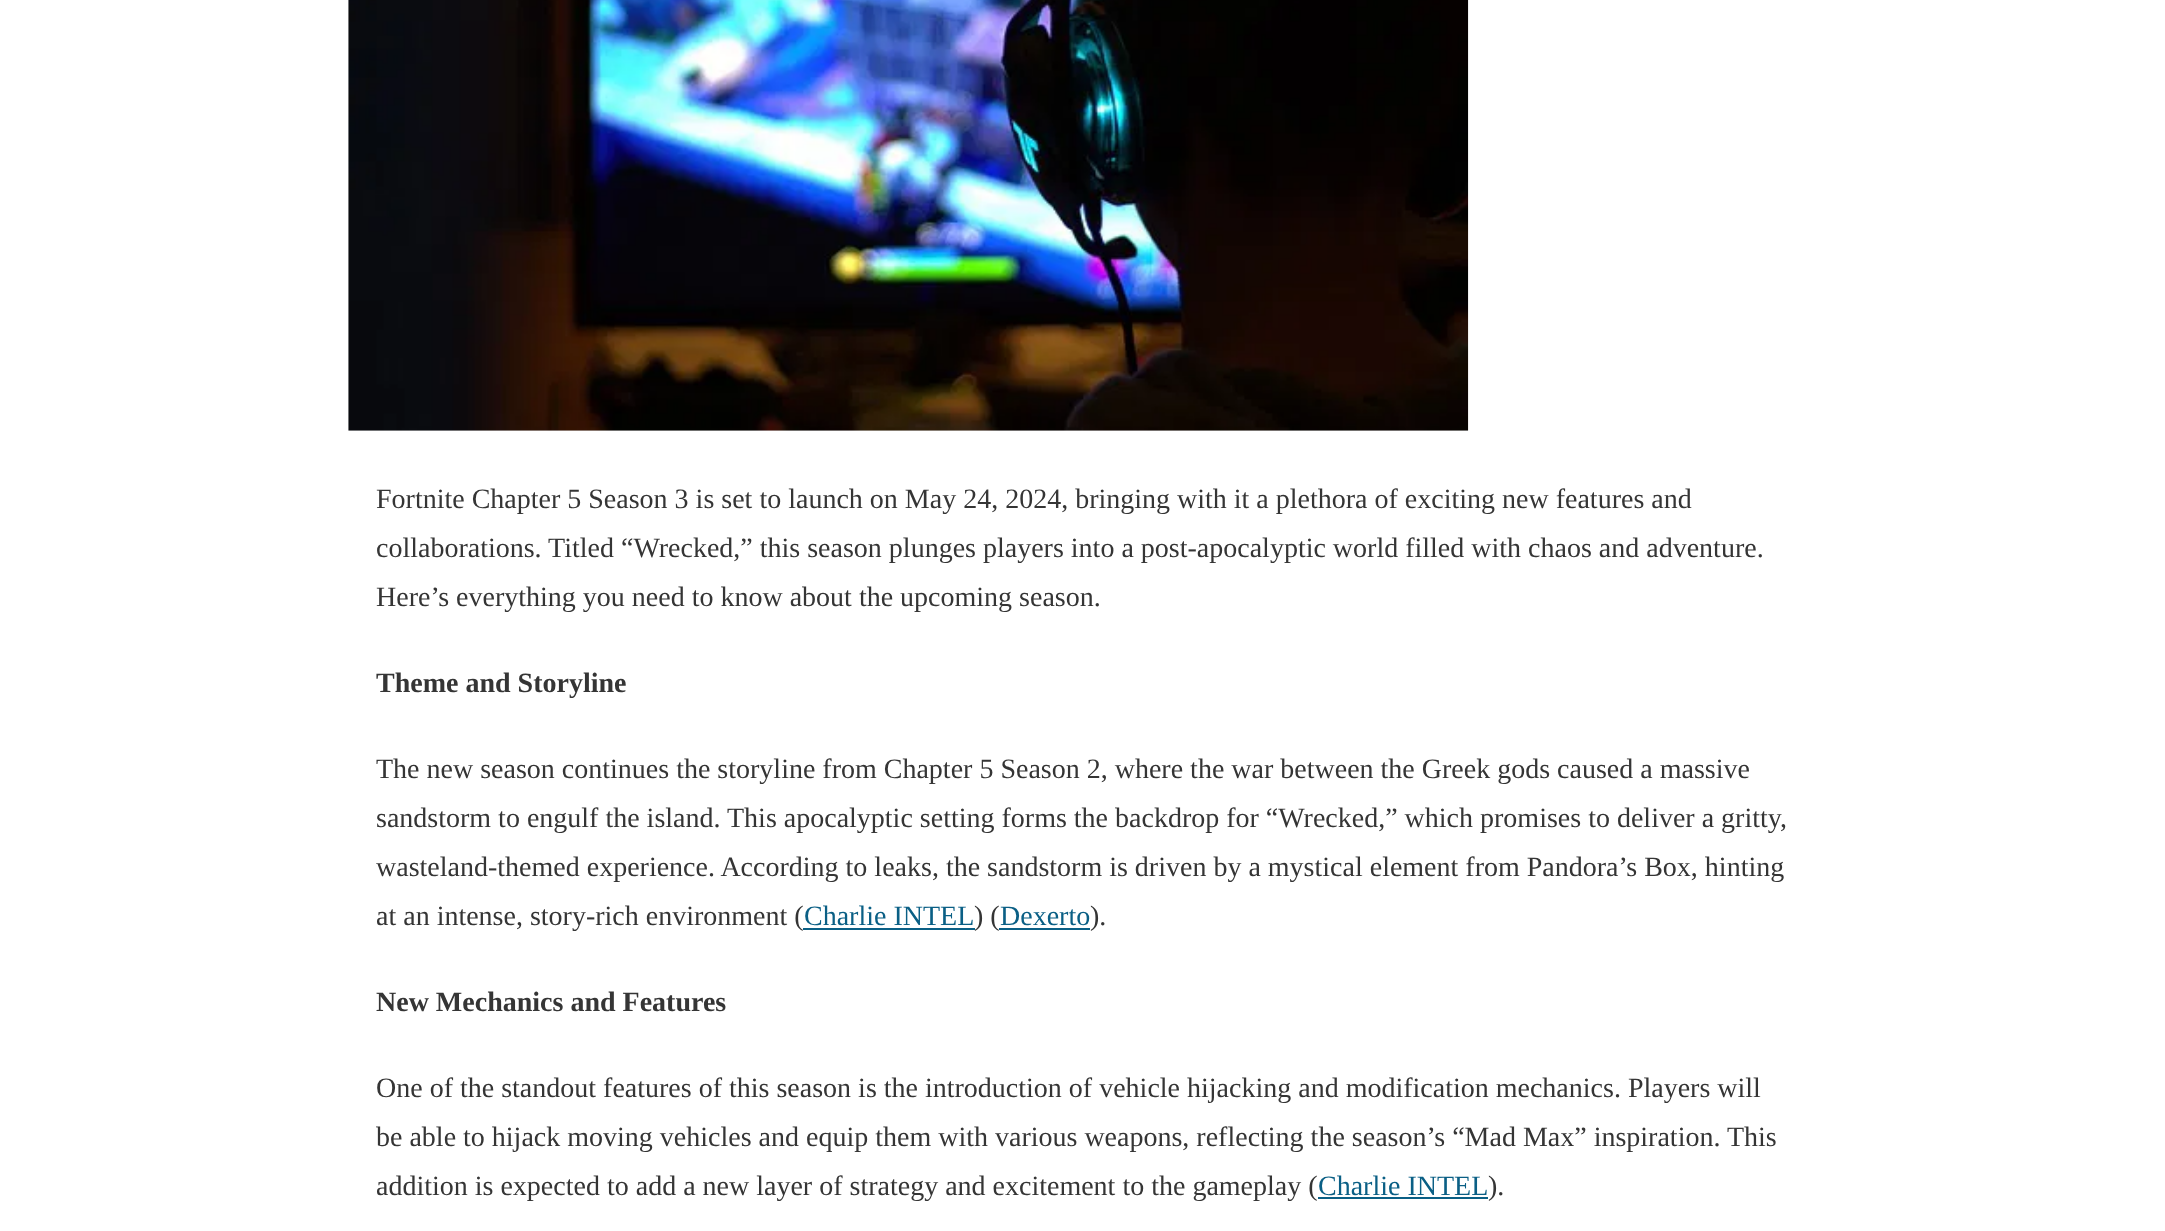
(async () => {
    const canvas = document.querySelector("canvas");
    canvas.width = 2165;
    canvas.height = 1231;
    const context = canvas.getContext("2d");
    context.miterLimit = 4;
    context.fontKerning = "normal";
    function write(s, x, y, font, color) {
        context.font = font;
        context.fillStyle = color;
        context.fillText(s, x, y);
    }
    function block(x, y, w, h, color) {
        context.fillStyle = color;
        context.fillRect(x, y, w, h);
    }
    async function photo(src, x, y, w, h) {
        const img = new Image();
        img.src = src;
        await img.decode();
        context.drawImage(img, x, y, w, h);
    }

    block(0, 0, 2165, 1231, "rgb(255, 255, 255)");
    await photo("media/1.png", 348, 0, 1121, 431);
    write("Fortnite Chapter 5 Season 3 is set to launch on May 24, 2024, bringing with it a plethora of exciting new features and", 376, 508, "28px Liberation Serif", "rgb(53, 53, 53)");
    write("collaborations. Titled “Wrecked,” this season plunges players into a post-apocalyptic world filled with chaos and adventure.", 376, 557, "28px Liberation Serif", "rgb(53, 53, 53)");
    write("Here’s everything you need to know about the upcoming season.", 376, 606, "28px Liberation Serif", "rgb(53, 53, 53)");
    write("Theme and Storyline", 376, 692, "bold 28px Liberation Serif", "rgb(53, 53, 53)");
    write("The new season continues the storyline from Chapter 5 Season 2, where the war between the Greek gods caused a massive", 376, 778, "28px Liberation Serif", "rgb(53, 53, 53)");
    write("sandstorm to engulf the island. This apocalyptic setting forms the backdrop for “Wrecked,” which promises to deliver a gritty,", 376, 827, "28px Liberation Serif", "rgb(53, 53, 53)");
    write("wasteland-themed experience. According to leaks, the sandstorm is driven by a mystical element from Pandora’s Box, hinting", 376, 876, "28px Liberation Serif", "rgb(53, 53, 53)");
    write("at an intense, story-rich environment (", 376, 925, "28px Liberation Serif", "rgb(53, 53, 53)");
    write("Charlie INTEL", 804, 925, "28px Liberation Serif", "rgb(10, 95, 133)");
    write(") (", 974, 925, "28px Liberation Serif", "rgb(53, 53, 53)");
    block(803, 928, 172, 2, "rgb(10, 95, 133)");
    write("Dexerto", 1000, 925, "28px Liberation Serif", "rgb(10, 95, 133)");
    write(").", 1090, 925, "28px Liberation Serif", "rgb(53, 53, 53)");
    block(999, 928, 91, 2, "rgb(10, 95, 133)");
    write("New Mechanics and Features", 376, 1011, "bold 28px Liberation Serif", "rgb(53, 53, 53)");
    write("One of the standout features of this season is the introduction of vehicle hijacking and modification mechanics. Players will", 376, 1097, "28px Liberation Serif", "rgb(53, 53, 53)");
    write("be able to hijack moving vehicles and equip them with various weapons, reflecting the season’s “Mad Max” inspiration. This", 376, 1146, "28px Liberation Serif", "rgb(53, 53, 53)");
    write("addition is expected to add a new layer of strategy and excitement to the gameplay (", 376, 1195, "28px Liberation Serif", "rgb(53, 53, 53)");
    write("Charlie INTEL", 1318, 1195, "28px Liberation Serif", "rgb(10, 95, 133)");
    write(").", 1488, 1195, "28px Liberation Serif", "rgb(53, 53, 53)");
    block(1318, 1197, 170, 2, "rgb(10, 95, 133)");
})();
